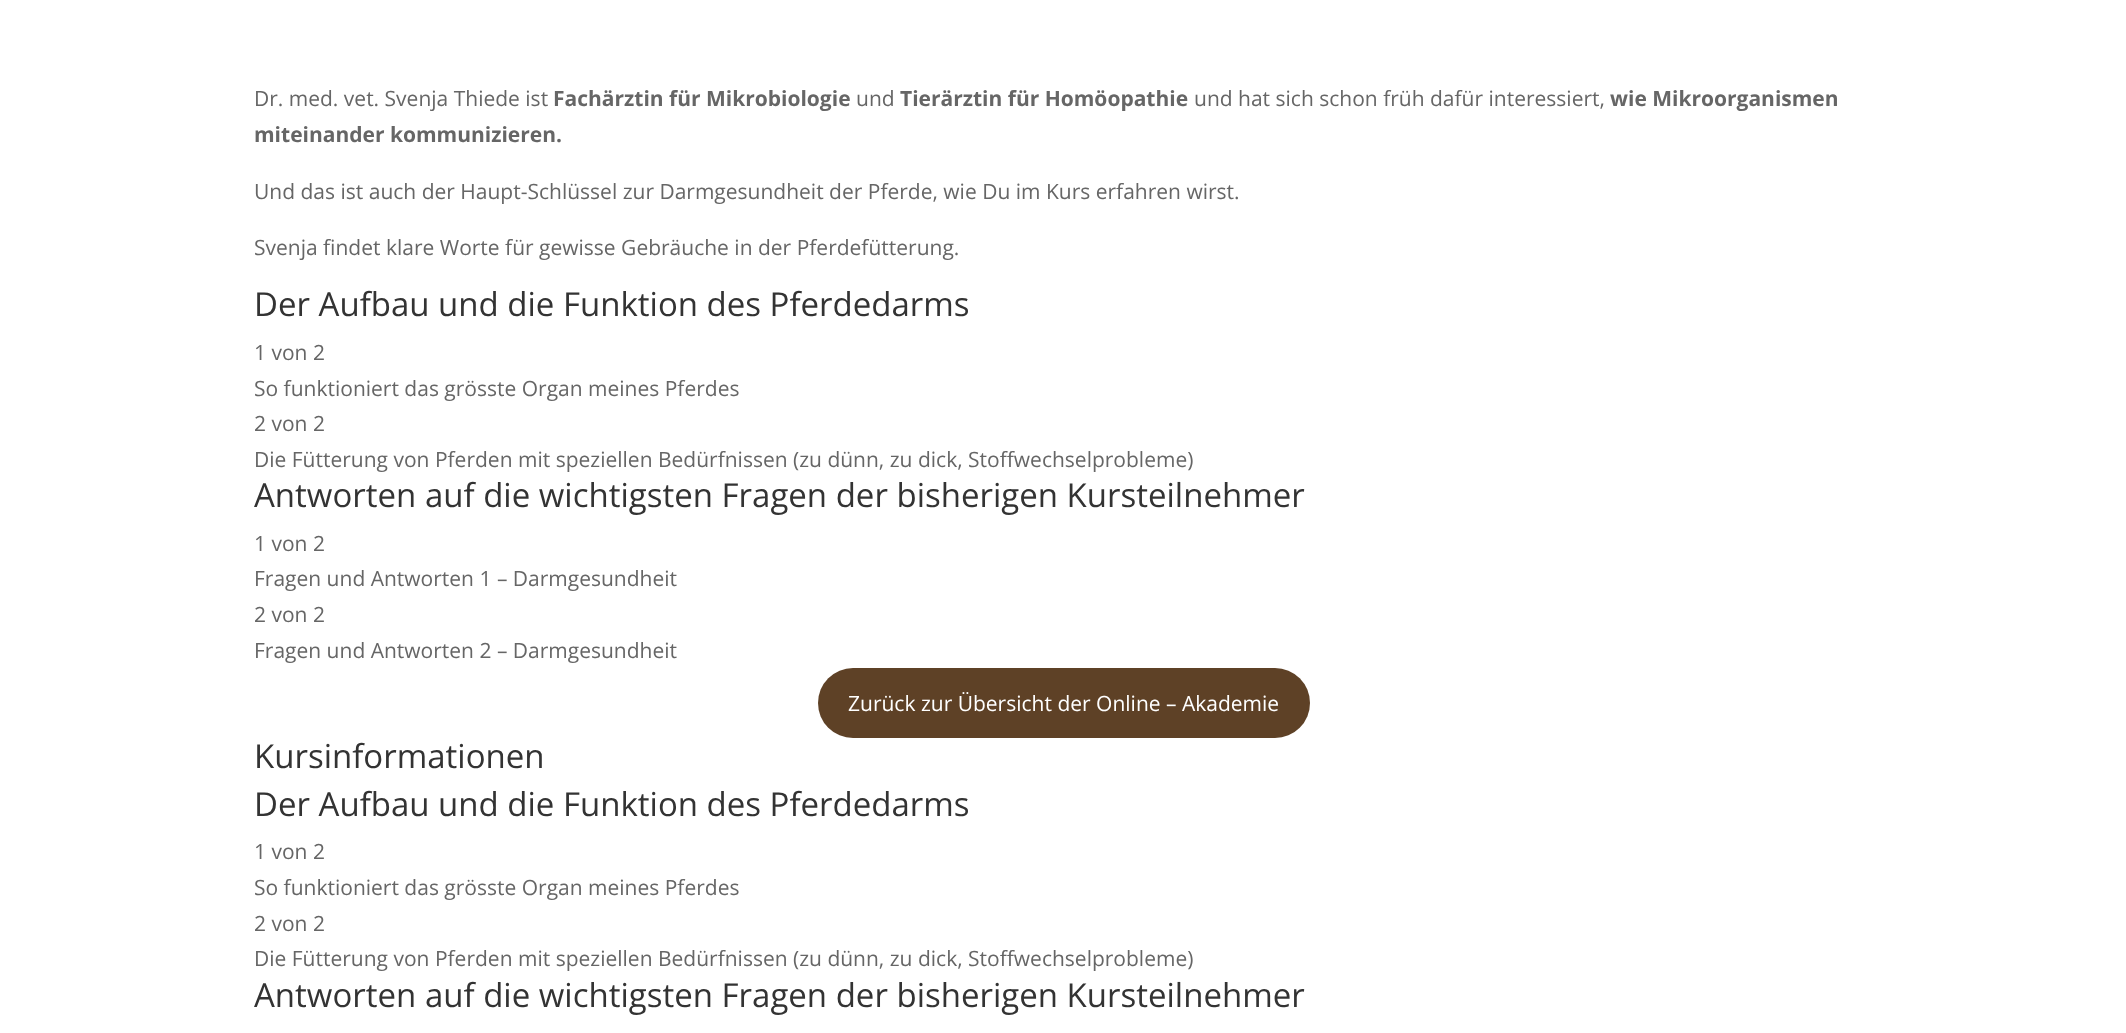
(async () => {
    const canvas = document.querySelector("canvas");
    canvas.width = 2126;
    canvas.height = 1033;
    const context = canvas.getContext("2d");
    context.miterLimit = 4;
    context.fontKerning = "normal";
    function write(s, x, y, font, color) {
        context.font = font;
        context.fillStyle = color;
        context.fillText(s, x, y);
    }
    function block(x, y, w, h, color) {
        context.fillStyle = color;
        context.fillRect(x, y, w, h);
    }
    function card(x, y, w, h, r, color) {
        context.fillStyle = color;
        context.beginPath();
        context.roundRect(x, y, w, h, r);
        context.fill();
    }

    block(0, 0, 2126, 1033, "rgb(255, 255, 255)");
    write("Dr. med. vet. Svenja Thiede ist", 254, 106, "21px Open Sans", "rgb(102, 102, 102)");
    write("Fachärztin für Mikrobiologie", 553, 106, "bold 21px Open Sans", "rgb(102, 102, 102)");
    write("und", 856, 106, "21px Open Sans", "rgb(102, 102, 102)");
    write("Tierärztin für Homöopathie", 900, 106, "bold 21px Open Sans", "rgb(102, 102, 102)");
    write("und hat sich schon früh dafür interessiert,", 1194, 106, "21px Open Sans", "rgb(102, 102, 102)");
    write("wie Mikroorganismen", 1610, 106, "bold 21px Open Sans", "rgb(102, 102, 102)");
    write("miteinander kommunizieren.", 254, 142, "bold 21px Open Sans", "rgb(102, 102, 102)");
    write("Und das ist auch der Haupt-Schlüssel zur Darmgesundheit der Pferde, wie Du im Kurs erfahren wirst.", 254, 199, "21px Open Sans", "rgb(102, 102, 102)");
    write("Svenja findet klare Worte für gewisse Gebräuche in der Pferdefütterung.", 254, 255, "21px Open Sans", "rgb(102, 102, 102)");
    write("Der Aufbau und die Funktion des Pferdedarms", 254, 316, "33px Open Sans", "rgb(51, 51, 51)");
    write("1 von 2", 254, 360, "21px Open Sans", "rgb(102, 102, 102)");
    write("So funktioniert das grösste Organ meines Pferdes", 254, 396, "21px Open Sans", "rgb(102, 102, 102)");
    write("2 von 2", 254, 431, "21px Open Sans", "rgb(102, 102, 102)");
    write("Die Fütterung von Pferden mit speziellen Bedürfnissen (zu dünn, zu dick, Stoffwechselprobleme)", 254, 467, "21px Open Sans", "rgb(102, 102, 102)");
    write("Antworten auf die wichtigsten Fragen der bisherigen Kursteilnehmer", 254, 507, "33px Open Sans", "rgb(51, 51, 51)");
    write("1 von 2", 254, 551, "21px Open Sans", "rgb(102, 102, 102)");
    write("Fragen und Antworten 1 – Darmgesundheit", 254, 586, "21px Open Sans", "rgb(102, 102, 102)");
    write("2 von 2", 254, 622, "21px Open Sans", "rgb(102, 102, 102)");
    write("Fragen und Antworten 2 – Darmgesundheit", 254, 658, "21px Open Sans", "rgb(102, 102, 102)");
    card(818, 668, 492, 70, 35, "rgb(94, 65, 38)");
    write("Zurück zur Übersicht der Online – Akademie", 848, 711, "21px Open Sans", "rgb(255, 255, 255)");
    write("Kursinformationen", 254, 768, "33px Open Sans", "rgb(51, 51, 51)");
    write("Der Aufbau und die Funktion des Pferdedarms", 254, 816, "33px Open Sans", "rgb(51, 51, 51)");
    write("1 von 2", 254, 859, "21px Open Sans", "rgb(102, 102, 102)");
    write("So funktioniert das grösste Organ meines Pferdes", 254, 895, "21px Open Sans", "rgb(102, 102, 102)");
    write("2 von 2", 254, 931, "21px Open Sans", "rgb(102, 102, 102)");
    write("Die Fütterung von Pferden mit speziellen Bedürfnissen (zu dünn, zu dick, Stoffwechselprobleme)", 254, 966, "21px Open Sans", "rgb(102, 102, 102)");
    write("Antworten auf die wichtigsten Fragen der bisherigen Kursteilnehmer", 254, 1007, "33px Open Sans", "rgb(51, 51, 51)");
})();
